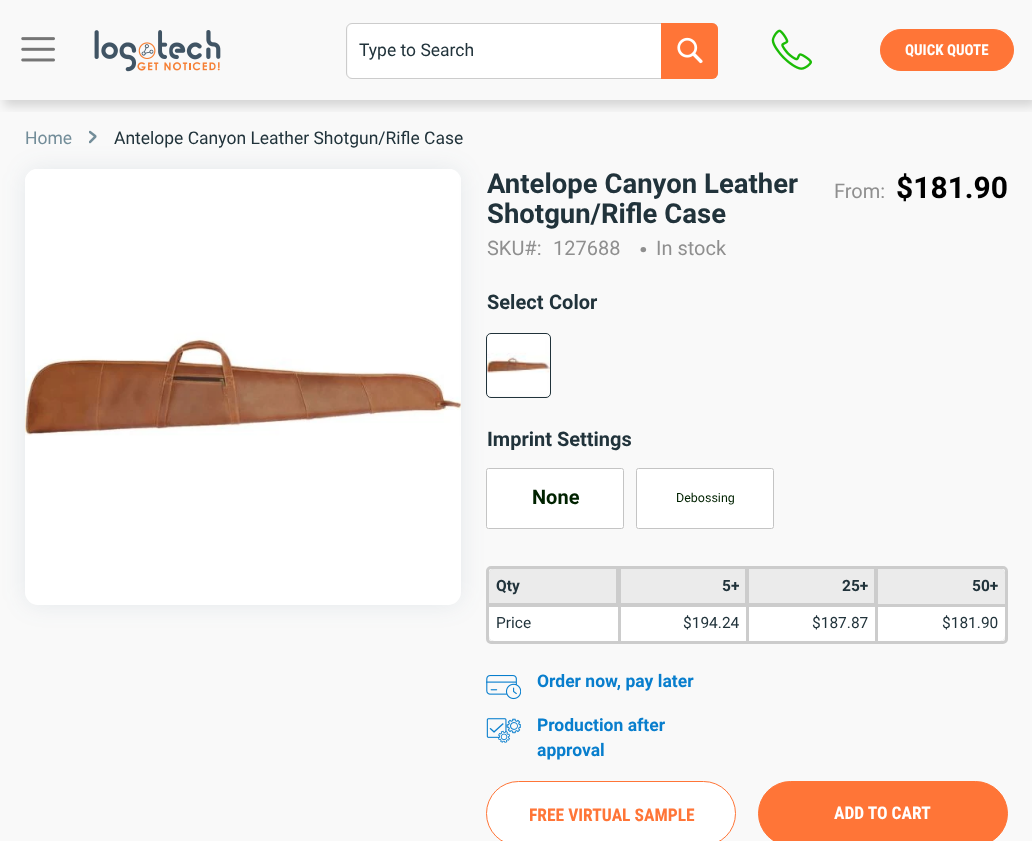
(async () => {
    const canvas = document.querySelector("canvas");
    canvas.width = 1032;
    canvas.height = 841;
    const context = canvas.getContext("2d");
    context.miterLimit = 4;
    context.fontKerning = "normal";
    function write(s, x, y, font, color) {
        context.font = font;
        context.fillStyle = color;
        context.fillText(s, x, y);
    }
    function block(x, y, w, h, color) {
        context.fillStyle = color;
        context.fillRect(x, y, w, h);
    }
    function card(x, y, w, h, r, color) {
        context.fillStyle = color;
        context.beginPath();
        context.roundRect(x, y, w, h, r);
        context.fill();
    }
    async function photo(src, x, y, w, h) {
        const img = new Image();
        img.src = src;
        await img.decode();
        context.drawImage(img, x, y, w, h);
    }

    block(0, 0, 1032, 841, "rgb(249, 249, 249)");
    context.save();
    context.beginPath();
    context.rect(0, 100, 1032, 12);
    context.clip();
    context.fillStyle = "rgba(0, 0, 0, 0.15)";
    context.filter = "blur(5.5px)";
    context.beginPath();
    context.rect(4, 6, 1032, 100);
    context.fill();
    context.filter = "none";
    context.restore();
    await photo("media/1.png", 21, 37, 34, 25);
    await photo("media/2.png", 94, 30, 127, 42);
    card(348, 24, 368, 54, 5, "rgb(255, 255, 255)");
    context.beginPath();
    context.roundRect(346.5, 23.5, 371, 55, 5.5);
    context.strokeStyle = "rgb(204, 204, 204)";
    context.stroke();
    write("Type to Search", 359, 56, "17.5px Roboto", "rgb(33, 51, 59)");
    context.fillStyle = "rgb(255, 117, 55)";
    context.beginPath();
    context.roundRect(661, 23, 57, 56, [0, 6, 6, 0]);
    context.fill();
    await photo("media/3.png", 677, 37, 26, 27);
    await photo("media/4.png", 771, 29, 41, 41);
    context.beginPath();
    context.roundRect(880.5, 29.5, 133, 41, 20.5);
    context.fill();
    context.strokeStyle = "rgb(255, 117, 55)";
    context.stroke();
    write("QUICK QUOTE", 905, 55, "bold 15px Roboto Condensed", "rgb(255, 255, 255)");
    write("Home", 25, 144, "17.5px Roboto", "rgb(115, 141, 153)");
    await photo("media/5.png", 89, 130, 8, 14);
    write("Antelope Canyon Leather Shotgun/Rifle Case", 114, 144, "17.5px Roboto", "rgb(33, 51, 59)");
    context.beginPath();
    context.roundRect(487.5, 567.5, 519, 75, 3.5);
    context.strokeStyle = "rgb(204, 204, 204)";
    context.lineWidth = 3;
    context.stroke();
    card(489, 569, 516, 72, 5, "rgb(204, 204, 204)");
    context.fillStyle = "rgb(235, 235, 235)";
    context.beginPath();
    context.roundRect(489, 569, 127, 34, [5, 0, 0, 0]);
    context.fill();
    context.fillStyle = "rgb(255, 255, 255)";
    context.beginPath();
    context.roundRect(489, 605, 130, 36, [0, 0, 0, 5]);
    context.fill();
    block(618, 604, 1, 37, "rgb(204, 204, 204)");
    block(489, 605, 131, 2, "rgb(204, 204, 204)");
    context.fillStyle = "rgba(48, 90, 118, 0.1)";
    context.filter = "blur(12.5px)";
    context.beginPath();
    context.roundRect(25, 169, 436, 436, 13);
    context.fill();
    context.filter = "none";
    card(25, 169, 436, 436, 13, "rgb(255, 255, 255)");
    await photo("media/6.png", 25, 169, 436, 267);
    write("Antelope Canyon Leather", 487, 193, "bold 27.5px Roboto", "rgb(33, 51, 59)");
    write("Shotgun/Rifle Case", 487, 223, "bold 27.5px Roboto", "rgb(33, 51, 59)");
    write("From:", 834, 198, "20px Roboto", "rgb(143, 143, 143)");
    write("$181.90", 896, 198, "bold 30px Roboto", "rgb(0, 0, 0)");
    write("SKU#:", 487, 255, "20px Roboto", "rgb(143, 143, 143)");
    write("127688", 553, 255, "20px Roboto", "rgb(143, 143, 143)");
    write(".", 637, 252, "50px Roboto", "rgb(143, 143, 143)");
    write("In stock", 656, 255, "20px Roboto", "rgb(143, 143, 143)");
    write("Select", 487, 309, "bold 20px Roboto", "rgb(33, 51, 59)");
    write("Color", 549, 309, "bold 20px Roboto", "rgb(33, 51, 59)");
    await photo("media/7.png", 487, 334, 63, 62);
    context.beginPath();
    context.roundRect(486.5, 333.5, 64, 64, 4.5);
    context.strokeStyle = "rgb(33, 51, 59)";
    context.lineWidth = 1;
    context.stroke();
    write("Imprint Settings", 487, 446, "bold 20px Roboto", "rgb(33, 51, 59)");
    context.fillStyle = "rgb(255, 255, 255)";
    context.beginPath();
    context.roundRect(486.5, 468.5, 137, 60, 2);
    context.fill();
    context.strokeStyle = "rgb(196, 196, 196)";
    context.stroke();
    write("None", 532, 504, "bold 20px Roboto", "rgb(0, 34, 0)");
    context.fillStyle = "rgb(255, 255, 255)";
    context.beginPath();
    context.roundRect(636.5, 468.5, 137, 60, 2);
    context.fill();
    context.stroke();
    write("Debossing", 676, 502, "12.5px Roboto", "rgb(0, 34, 0)");
    write("Qty", 496, 591, "bold 15.5px Roboto", "rgb(33, 51, 59)");
    block(621, 569, 124, 34, "rgb(235, 235, 235)");
    write("5+", 722, 591, "bold 15.5px Roboto", "rgb(33, 51, 59)");
    block(749, 569, 125, 34, "rgb(235, 235, 235)");
    context.beginPath();
    context.roundRect(876, 569, 129, 36, [0, 5, 0, 0]);
    context.fill();
    context.fillStyle = "rgb(255, 255, 255)";
    context.beginPath();
    context.roundRect(876, 605, 129, 36, [0, 0, 5, 0]);
    context.fill();
    block(876, 604, 2, 37, "rgb(204, 204, 204)");
    block(875, 604, 130, 3, "rgb(204, 204, 204)");
    block(876, 569, 2, 37, "rgb(204, 204, 204)");
    write("25+", 842, 591, "bold 15.5px Roboto", "rgb(33, 51, 59)");
    write("50+", 972, 591, "bold 15.5px Roboto", "rgb(33, 51, 59)");
    write("Price", 496, 628, "15.5px Roboto", "rgb(33, 51, 59)");
    block(621, 607, 125, 34, "rgb(255, 255, 255)");
    write("$194.24", 683, 628, "15.5px Roboto", "rgb(33, 51, 59)");
    block(749, 607, 126, 34, "rgb(255, 255, 255)");
    write("$187.87", 812, 628, "15.5px Roboto", "rgb(33, 51, 59)");
    write("$181.90", 942, 628, "15.5px Roboto", "rgb(33, 51, 59)");
    await photo("media/8.png", 486, 675, 35, 25);
    write("Order now, pay later", 537, 687, "bold 17.5px Roboto", "rgb(8, 126, 205)");
    await photo("media/9.png", 486, 718, 35, 25);
    write("Production after", 537, 731, "bold 17.5px Roboto", "rgb(8, 126, 205)");
    write("approval", 537, 756, "bold 17.5px Roboto", "rgb(8, 126, 205)");
    context.fillStyle = "rgb(255, 255, 255)";
    context.beginPath();
    context.roundRect(486.5, 781.5, 249, 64, 32);
    context.fill();
    context.strokeStyle = "rgb(255, 117, 55)";
    context.stroke();
    write("FREE VIRTUAL SAMPLE", 529, 821, "bold 17.5px Roboto Condensed", "rgb(255, 117, 55)");
    context.beginPath();
    context.roundRect(758.5, 781.5, 249, 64, 32);
    context.fill();
    context.stroke();
    write("ADD TO CART", 834, 819, "bold 17.5px Roboto Condensed", "rgb(255, 255, 255)");
})();
